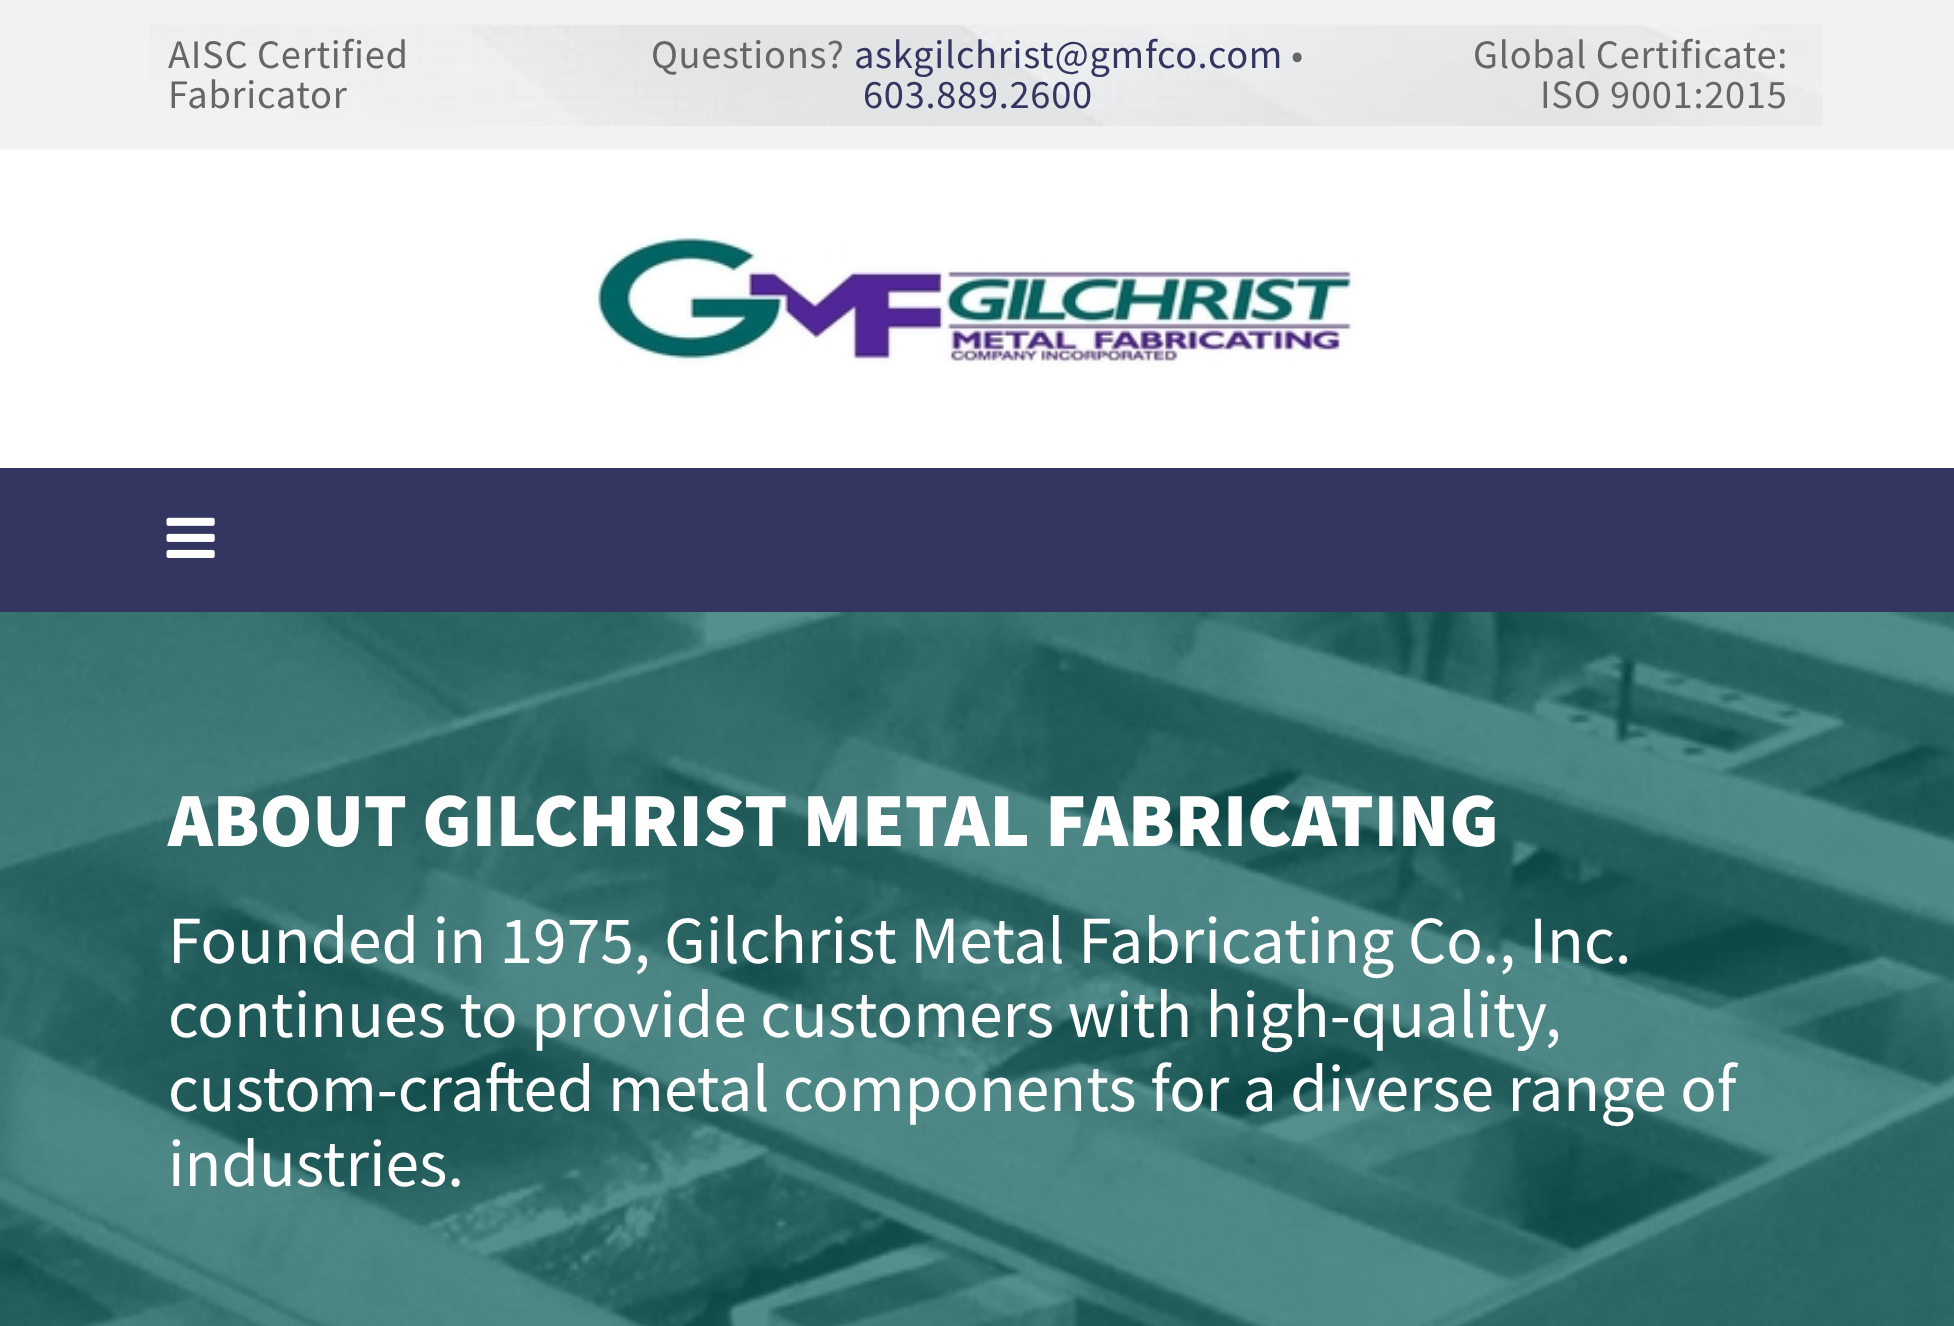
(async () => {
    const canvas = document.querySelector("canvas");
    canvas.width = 1954;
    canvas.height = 1326;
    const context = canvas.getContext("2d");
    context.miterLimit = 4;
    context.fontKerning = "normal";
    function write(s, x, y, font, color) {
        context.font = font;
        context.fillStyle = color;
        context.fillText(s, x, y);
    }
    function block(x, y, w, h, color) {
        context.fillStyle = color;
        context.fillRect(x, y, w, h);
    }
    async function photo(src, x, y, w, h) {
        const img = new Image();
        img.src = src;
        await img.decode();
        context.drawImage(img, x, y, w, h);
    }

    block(0, 0, 1954, 1326, "rgb(255, 255, 255)");
    block(0, 0, 1954, 149, "rgb(240, 242, 243)");
    await photo("media/1.png", 149, 24, 1674, 102);
    context.letterSpacing = "0.7px";
    write("AISC Certified", 168, 68, "40.5px Source Sans Pro", "rgb(102, 102, 102)");
    write("Fabricator", 168, 108, "40.5px Source Sans Pro", "rgb(102, 102, 102)");
    write("Questions?", 651, 68, "40.5px Source Sans Pro", "rgb(102, 102, 102)");
    write("askgilchrist@gmfco.com", 854, 68, "40.5px Source Sans Pro", "rgb(51, 54, 96)");
    write("•", 1291, 68, "40.5px Source Sans Pro", "rgb(102, 102, 102)");
    write("603.889.2600", 863, 108, "40.5px Source Sans Pro", "rgb(51, 54, 96)");
    write("Global Certificate:", 1473, 68, "40.5px Source Sans Pro", "rgb(102, 102, 102)");
    write("ISO 9001:2015", 1540, 108, "40.5px Source Sans Pro", "rgb(102, 102, 102)");
    await photo("media/2.png", 594, 234, 763, 132);
    block(0, 468, 1954, 144, "rgb(51, 54, 96)");
    await photo("media/3.png", 166, 517, 49, 41);
    await photo("media/4.png", 0, 612, 1954, 714);
    context.letterSpacing = "0px";
    write("ABOUT GILCHRIST METAL FABRICATING", 168, 846, "900 76.5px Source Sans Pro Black", "rgb(255, 255, 255)");
    write("Founded in 1975, Gilchrist Metal Fabricating Co., Inc.", 168, 963, "67.5px Source Sans Pro", "rgb(255, 255, 255)");
    write("continues to provide customers with high-quality,", 168, 1037, "67.5px Source Sans Pro", "rgb(255, 255, 255)");
    write("custom-crafted metal components for a diverse range of", 168, 1111, "67.5px Source Sans Pro", "rgb(255, 255, 255)");
    write("industries.", 168, 1186, "67.5px Source Sans Pro", "rgb(255, 255, 255)");
})();
